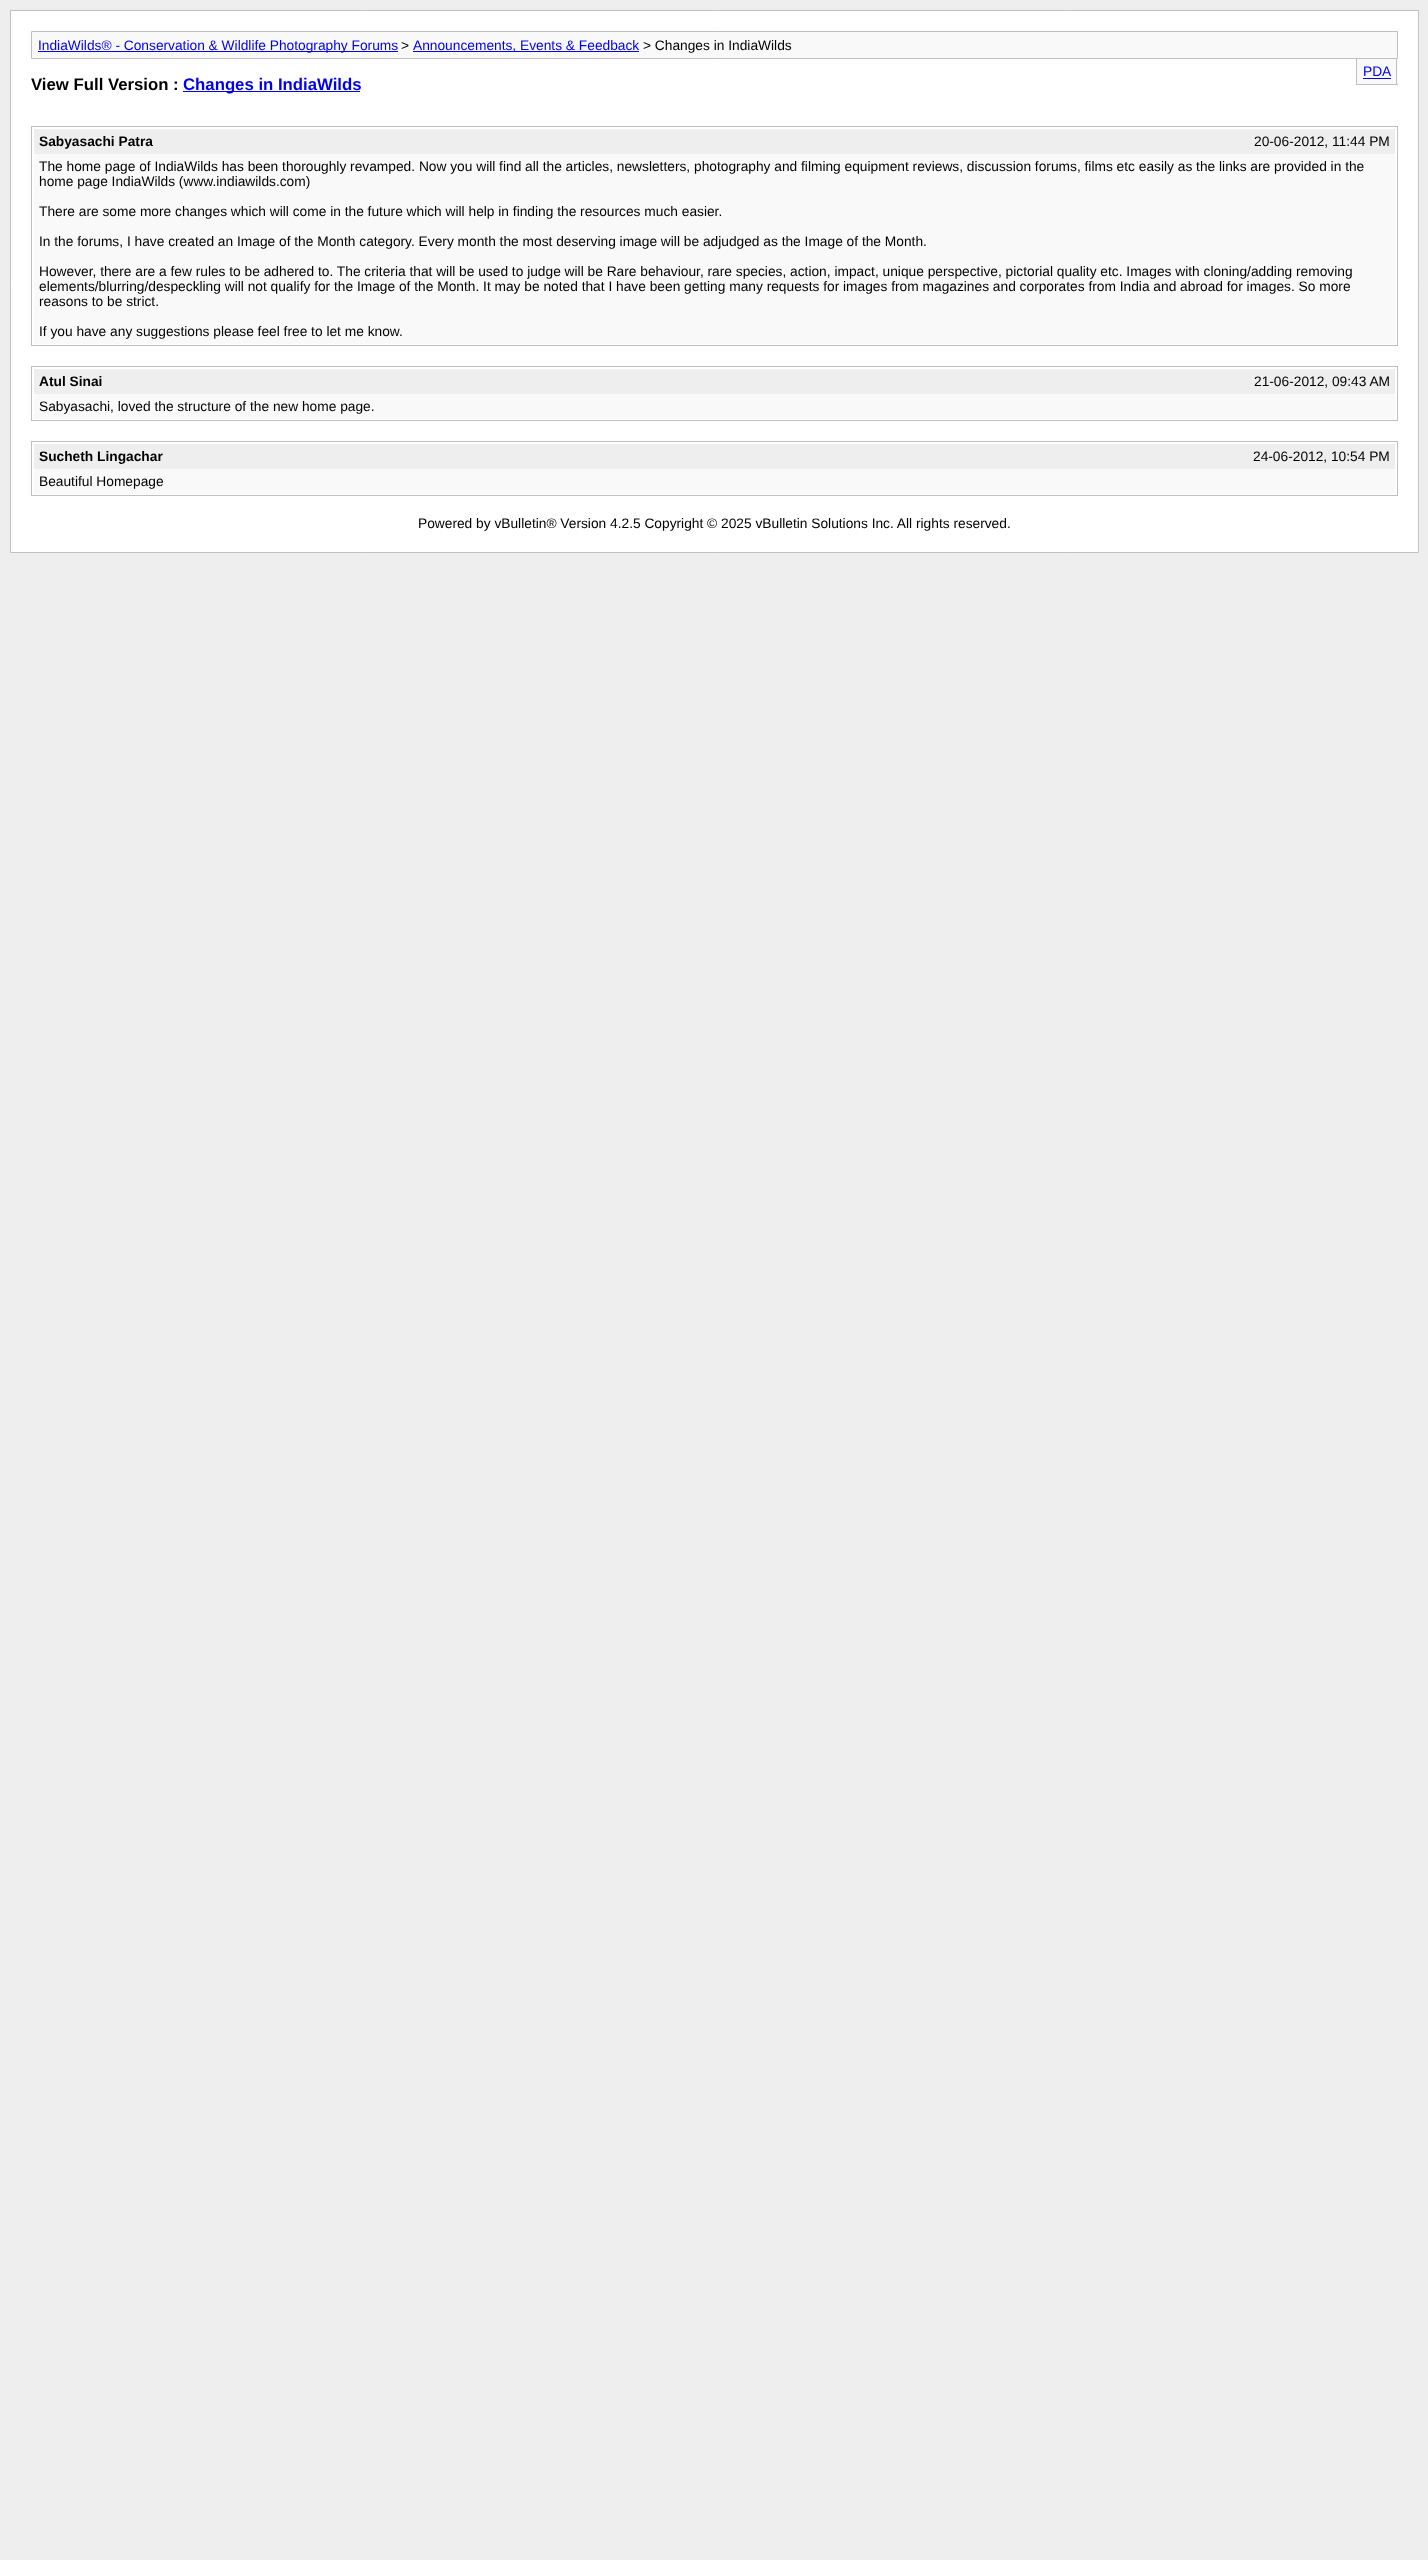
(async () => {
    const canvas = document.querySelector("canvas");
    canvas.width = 1428;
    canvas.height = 2560;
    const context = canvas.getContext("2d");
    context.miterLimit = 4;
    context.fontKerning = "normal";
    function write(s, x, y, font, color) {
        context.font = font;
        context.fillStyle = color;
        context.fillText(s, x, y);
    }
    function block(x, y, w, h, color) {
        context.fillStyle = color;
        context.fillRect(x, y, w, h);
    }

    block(0, 0, 1428, 2560, "rgb(238, 238, 238)");
    context.fillStyle = "rgb(255, 255, 255)";
    context.beginPath();
    context.rect(10.5, 10.5, 1408, 542);
    context.fill();
    context.strokeStyle = "rgb(192, 192, 192)";
    context.stroke();
    context.fillStyle = "rgb(249, 249, 249)";
    context.beginPath();
    context.rect(31.5, 31.5, 1366, 27);
    context.fill();
    context.stroke();
    block(38, 51, 360, 1, "rgb(0, 0, 238)");
    write("IndiaWilds® - Conservation & Wildlife Photography Forums", 38, 50, "13.75px Liberation Sans", "rgb(0, 0, 238)");
    write(">", 401, 50, "13.75px Liberation Sans", "rgb(0, 0, 0)");
    block(413, 51, 226, 1, "rgb(0, 0, 238)");
    write("Announcements, Events & Feedback", 413, 50, "13.75px Liberation Sans", "rgb(0, 0, 238)");
    write("> Changes in IndiaWilds", 643, 50, "13.75px Liberation Sans", "rgb(0, 0, 0)");
    block(1357, 59, 41, 25, "rgb(249, 249, 249)");
    block(1396, 59, 1, 26, "rgb(192, 192, 192)");
    block(1356, 84, 42, 1, "rgb(192, 192, 192)");
    block(1356, 59, 1, 26, "rgb(192, 192, 192)");
    write("PDA", 1363, 76, "13.75px Liberation Sans", "rgb(0, 0, 238)");
    block(1363, 78, 28, 1, "rgb(0, 0, 238)");
    write("View Full Version :", 31, 90, "bold 16.75px Liberation Sans", "rgb(0, 0, 0)");
    block(183, 91, 177, 1, "rgb(0, 0, 238)");
    write("Changes in IndiaWilds", 183, 90, "bold 16.75px Liberation Sans", "rgb(0, 0, 238)");
    context.strokeRect(31.5, 126.5, 1366, 219);
    block(34, 129, 1361, 25, "rgb(238, 238, 238)");
    write("Sabyasachi Patra", 39, 146, "bold 13.75px Liberation Sans", "rgb(0, 0, 0)");
    write("20-06-2012, 11:44 PM", 1254, 146, "13.75px Liberation Sans", "rgb(0, 0, 0)");
    block(34, 154, 1361, 190, "rgb(249, 249, 249)");
    write("The home page of IndiaWilds has been thoroughly revamped. Now you will find all the articles, newsletters, photography and filming equipment reviews, discussion forums, films etc easily as the links are provided in the", 39, 171, "13.75px Liberation Sans", "rgb(0, 0, 0)");
    write("home page IndiaWilds (www.indiawilds.com)", 39, 186, "13.75px Liberation Sans", "rgb(0, 0, 0)");
    write("There are some more changes which will come in the future which will help in finding the resources much easier.", 39, 216, "13.75px Liberation Sans", "rgb(0, 0, 0)");
    write("In the forums, I have created an Image of the Month category. Every month the most deserving image will be adjudged as the Image of the Month.", 39, 246, "13.75px Liberation Sans", "rgb(0, 0, 0)");
    write("However, there are a few rules to be adhered to. The criteria that will be used to judge will be Rare behaviour, rare species, action, impact, unique perspective, pictorial quality etc. Images with cloning/adding removing", 39, 276, "13.75px Liberation Sans", "rgb(0, 0, 0)");
    write("elements/blurring/despeckling will not qualify for the Image of the Month. It may be noted that I have been getting many requests for images from magazines and corporates from India and abroad for images. So more", 39, 291, "13.75px Liberation Sans", "rgb(0, 0, 0)");
    write("reasons to be strict.", 39, 306, "13.75px Liberation Sans", "rgb(0, 0, 0)");
    write("If you have any suggestions please feel free to let me know.", 39, 336, "13.75px Liberation Sans", "rgb(0, 0, 0)");
    context.strokeRect(31.5, 366.5, 1366, 54);
    block(34, 369, 1361, 25, "rgb(238, 238, 238)");
    write("Atul Sinai", 39, 386, "bold 13.75px Liberation Sans", "rgb(0, 0, 0)");
    write("21-06-2012, 09:43 AM", 1254, 386, "13.75px Liberation Sans", "rgb(0, 0, 0)");
    block(34, 394, 1361, 25, "rgb(249, 249, 249)");
    write("Sabyasachi, loved the structure of the new home page.", 39, 411, "13.75px Liberation Sans", "rgb(0, 0, 0)");
    context.strokeRect(31.5, 441.5, 1366, 54);
    block(34, 444, 1361, 25, "rgb(238, 238, 238)");
    write("Sucheth Lingachar", 39, 461, "bold 13.75px Liberation Sans", "rgb(0, 0, 0)");
    write("24-06-2012, 10:54 PM", 1253, 461, "13.75px Liberation Sans", "rgb(0, 0, 0)");
    block(34, 469, 1361, 25, "rgb(249, 249, 249)");
    write("Beautiful Homepage", 39, 486, "13.75px Liberation Sans", "rgb(0, 0, 0)");
    write("Powered by vBulletin® Version 4.2.5 Copyright © 2025 vBulletin Solutions Inc. All rights reserved.", 418, 528, "13.75px Liberation Sans", "rgb(0, 0, 0)");
})();
